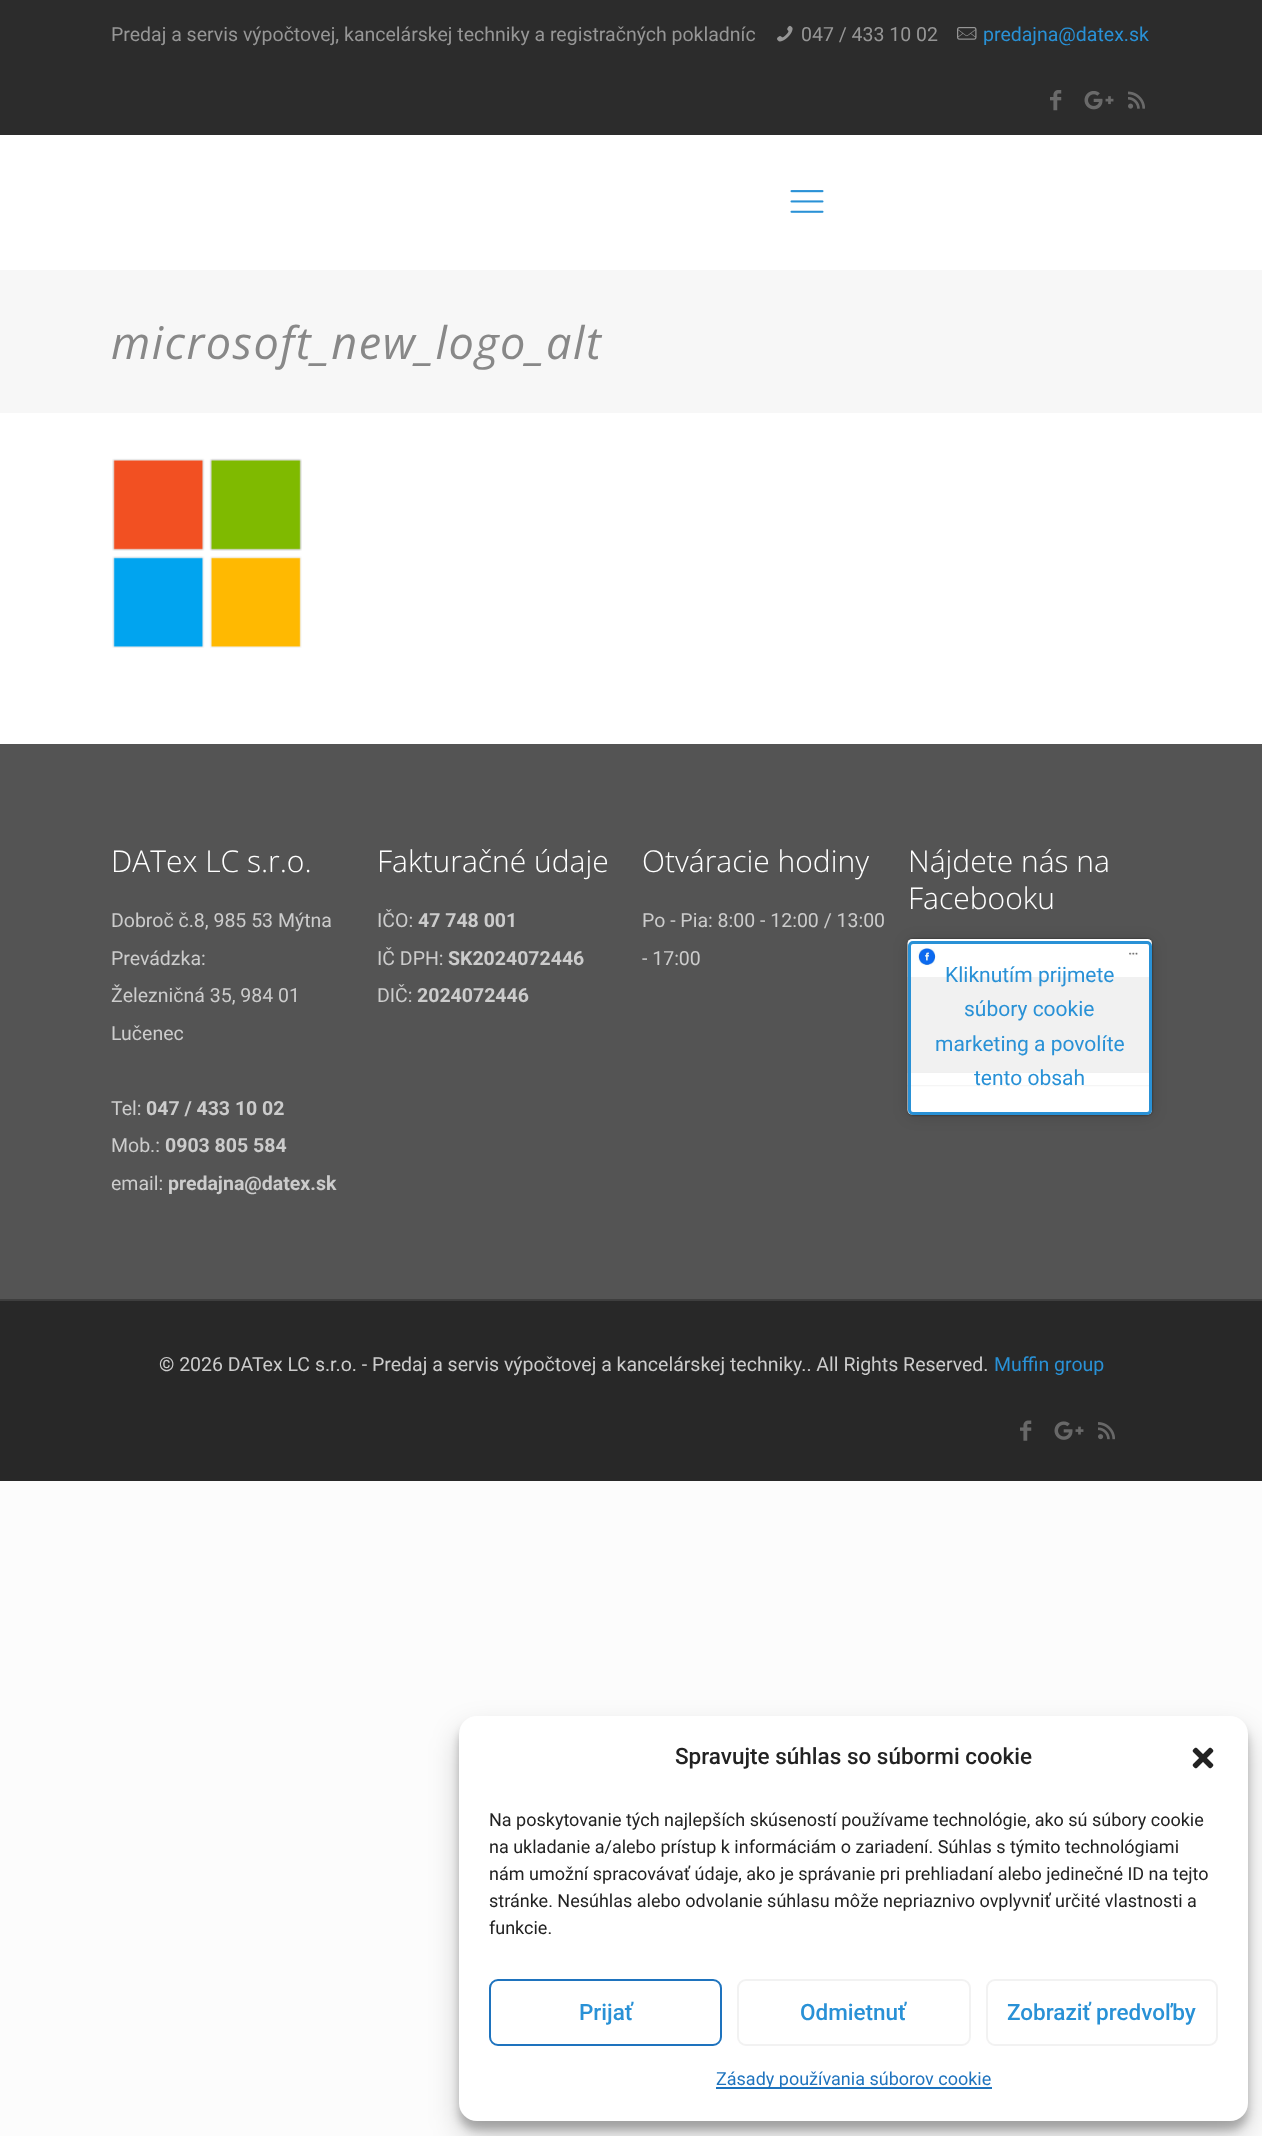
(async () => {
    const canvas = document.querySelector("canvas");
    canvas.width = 1262;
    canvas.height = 2136;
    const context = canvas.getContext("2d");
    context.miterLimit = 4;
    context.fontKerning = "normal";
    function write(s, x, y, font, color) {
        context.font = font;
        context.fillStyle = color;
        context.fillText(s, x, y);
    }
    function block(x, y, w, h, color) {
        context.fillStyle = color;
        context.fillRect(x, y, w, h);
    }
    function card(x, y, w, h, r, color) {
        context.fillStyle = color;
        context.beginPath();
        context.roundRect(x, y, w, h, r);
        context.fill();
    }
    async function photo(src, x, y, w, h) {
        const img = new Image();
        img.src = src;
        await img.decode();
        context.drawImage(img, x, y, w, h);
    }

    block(0, 0, 1262, 2136, "rgb(252, 252, 252)");
    block(0, 413, 1262, 331, "rgb(255, 255, 255)");
    block(0, 0, 1262, 135, "rgb(44, 44, 44)");
    write("Predaj a servis výpočtovej, kancelárskej techniky a registračných pokladníc", 111, 41, "19.5px Roboto", "rgb(150, 150, 150)");
    await photo("media/1.png", 777, 25, 16, 17);
    write("047 / 433 10 02", 801, 41, "19.5px Roboto", "rgb(150, 150, 150)");
    await photo("media/2.png", 957, 27, 20, 13);
    write("predajna@datex.sk", 983, 41, "19.5px Roboto", "rgb(41, 145, 214)");
    await photo("media/3.png", 1050, 90, 12, 21);
    await photo("media/4.png", 1084, 91, 30, 19);
    await photo("media/5.png", 1128, 91, 17, 18);
    block(0, 135, 1262, 135, "rgb(255, 255, 255)");
    await photo("media/6.png", 790, 190, 34, 23);
    block(0, 270, 1262, 143, "rgb(247, 247, 247)");
    context.letterSpacing = "1.5px";
    write("microsoft_new_logo_alt", 111, 359, "italic 45px Open Sans", "rgb(136, 136, 136)");
    await photo("media/7.png", 112, 458, 190, 190);
    block(0, 744, 1262, 555, "rgb(84, 84, 84)");
    context.letterSpacing = "0px";
    write("DATex LC s.r.o.", 111, 872, "300 30px Open Sans", "rgb(255, 255, 255)");
    write("Dobroč č.8, 985 53 Mýtna", 111, 927, "19.5px Roboto", "rgb(204, 204, 204)");
    write("Prevádzka:", 111, 965, "19.5px Roboto", "rgb(204, 204, 204)");
    write("Železničná 35, 984 01", 111, 1002, "19.5px Roboto", "rgb(204, 204, 204)");
    write("Lučenec", 111, 1040, "19.5px Roboto", "rgb(204, 204, 204)");
    write("Tel:", 111, 1115, "19.5px Roboto", "rgb(204, 204, 204)");
    write("047 / 433 10 02", 146, 1115, "bold 19.5px Roboto", "rgb(204, 204, 204)");
    write("Mob.:", 111, 1152, "19.5px Roboto", "rgb(204, 204, 204)");
    write("0903 805 584", 165, 1152, "bold 19.5px Roboto", "rgb(204, 204, 204)");
    write("email:", 111, 1190, "19.5px Roboto", "rgb(204, 204, 204)");
    write("predajna@datex.sk", 168, 1190, "bold 19.5px Roboto", "rgb(204, 204, 204)");
    write("Fakturačné údaje", 377, 872, "300 30px Open Sans", "rgb(255, 255, 255)");
    write("IČO:", 377, 927, "19.5px Roboto", "rgb(204, 204, 204)");
    write("47 748 001", 418, 927, "bold 19.5px Roboto", "rgb(204, 204, 204)");
    write("IČ DPH:", 377, 965, "19.5px Roboto", "rgb(204, 204, 204)");
    write("SK2024072446", 448, 965, "bold 19.5px Roboto", "rgb(204, 204, 204)");
    write("DIČ:", 377, 1002, "19.5px Roboto", "rgb(204, 204, 204)");
    write("2024072446", 417, 1002, "bold 19.5px Roboto", "rgb(204, 204, 204)");
    write("Otváracie hodiny", 642, 872, "300 30px Open Sans", "rgb(255, 255, 255)");
    write("Po - Pia: 8:00 - 12:00 / 13:00", 642, 927, "19.5px Roboto", "rgb(204, 204, 204)");
    write("- 17:00", 642, 965, "19.5px Roboto", "rgb(204, 204, 204)");
    write("Nájdete nás na", 908, 872, "300 30px Open Sans", "rgb(255, 255, 255)");
    write("Facebooku", 908, 909, "300 30px Open Sans", "rgb(255, 255, 255)");
    context.fillStyle = "rgba(0, 0, 0, 0.15)";
    context.filter = "blur(7.5px)";
    context.beginPath();
    context.roundRect(908, 941, 244, 175, 5);
    context.fill();
    context.filter = "none";
    context.fillStyle = "rgba(0, 0, 0, 0.5)";
    context.filter = "blur(1px)";
    context.beginPath();
    context.roundRect(908, 939, 244, 176, 5);
    context.fill();
    context.filter = "none";
    await photo("media/8.png", 907, 939, 245, 176);
    context.beginPath();
    context.roundRect(909.5, 942.5, 241, 171, 3.5);
    context.strokeStyle = "rgb(41, 145, 214)";
    context.lineWidth = 3;
    context.stroke();
    write("Kliknutím prijmete", 945, 982, "21px Roboto", "rgb(41, 145, 214)");
    write("súbory cookie", 964, 1016, "21px Roboto", "rgb(41, 145, 214)");
    write("marketing a povolíte", 935, 1051, "21px Roboto", "rgb(41, 145, 214)");
    write("tento obsah", 974, 1085, "21px Roboto", "rgb(41, 145, 214)");
    block(0, 1301, 1262, 180, "rgb(40, 40, 40)");
    block(0, 1299, 1262, 2, "rgb(62, 62, 62)");
    write("© 2026 DATex LC s.r.o. - Predaj a servis výpočtovej a kancelárskej techniky.. All Rights Reserved.", 159, 1371, "19.5px Roboto", "rgb(204, 204, 204)");
    write("Muffin group", 994, 1371, "19.5px Roboto", "rgb(41, 145, 214)");
    await photo("media/9.png", 1020, 1420, 12, 21);
    await photo("media/10.png", 1054, 1421, 30, 19);
    await photo("media/11.png", 1098, 1422, 17, 18);
    context.fillStyle = "rgba(0, 0, 0, 0.23)";
    context.filter = "blur(4.5px)";
    context.beginPath();
    context.roundRect(459, 1725, 789, 405, 18);
    context.fill();
    context.filter = "none";
    context.fillStyle = "rgba(0, 0, 0, 0.19)";
    context.filter = "blur(15px)";
    context.beginPath();
    context.roundRect(459, 1731, 789, 405, 18);
    context.fill();
    context.filter = "none";
    card(459, 1716, 789, 405, 18, "rgb(255, 255, 255)");
    write("Spravujte súhlas so súbormi cookie", 675, 1764, "500 22.5px Roboto", "rgb(34, 34, 34)");
    await photo("media/12.png", 1192, 1747, 22, 22);
    write("Na poskytovanie tých najlepších skúseností používame technológie, ako sú súbory cookie", 489, 1826, "18px Roboto", "rgb(34, 34, 34)");
    write("na ukladanie a/alebo prístup k informáciám o zariadení. Súhlas s týmito technológiami", 489, 1853, "18px Roboto", "rgb(34, 34, 34)");
    write("nám umožní spracovávať údaje, ako je správanie pri prehliadaní alebo jedinečné ID na tejto", 489, 1880, "18px Roboto", "rgb(34, 34, 34)");
    write("stránke. Nesúhlas alebo odvolanie súhlasu môže nepriaznivo ovplyvniť určité vlastnosti a", 489, 1907, "18px Roboto", "rgb(34, 34, 34)");
    write("funkcie.", 489, 1934, "18px Roboto", "rgb(34, 34, 34)");
    context.beginPath();
    context.roundRect(490, 1980, 231, 65, 8);
    context.strokeStyle = "rgb(30, 115, 190)";
    context.lineWidth = 2;
    context.stroke();
    write("Prijať", 579, 2020, "500 22.5px Roboto", "rgb(41, 145, 214)");
    context.beginPath();
    context.roundRect(738, 1980, 232, 65, 8);
    context.strokeStyle = "rgb(242, 242, 242)";
    context.stroke();
    write("Odmietnuť", 800, 2020, "500 22.5px Roboto", "rgb(41, 145, 214)");
    context.beginPath();
    context.roundRect(987, 1980, 230, 65, 8);
    context.stroke();
    write("Zobraziť predvoľby", 1007, 2020, "500 22.5px Roboto", "rgb(41, 145, 214)");
    block(716, 2087, 276, 2, "rgb(30, 115, 190)");
    write("Zásady používania súborov cookie", 716, 2085, "18px Roboto", "rgb(30, 115, 190)");
})();
